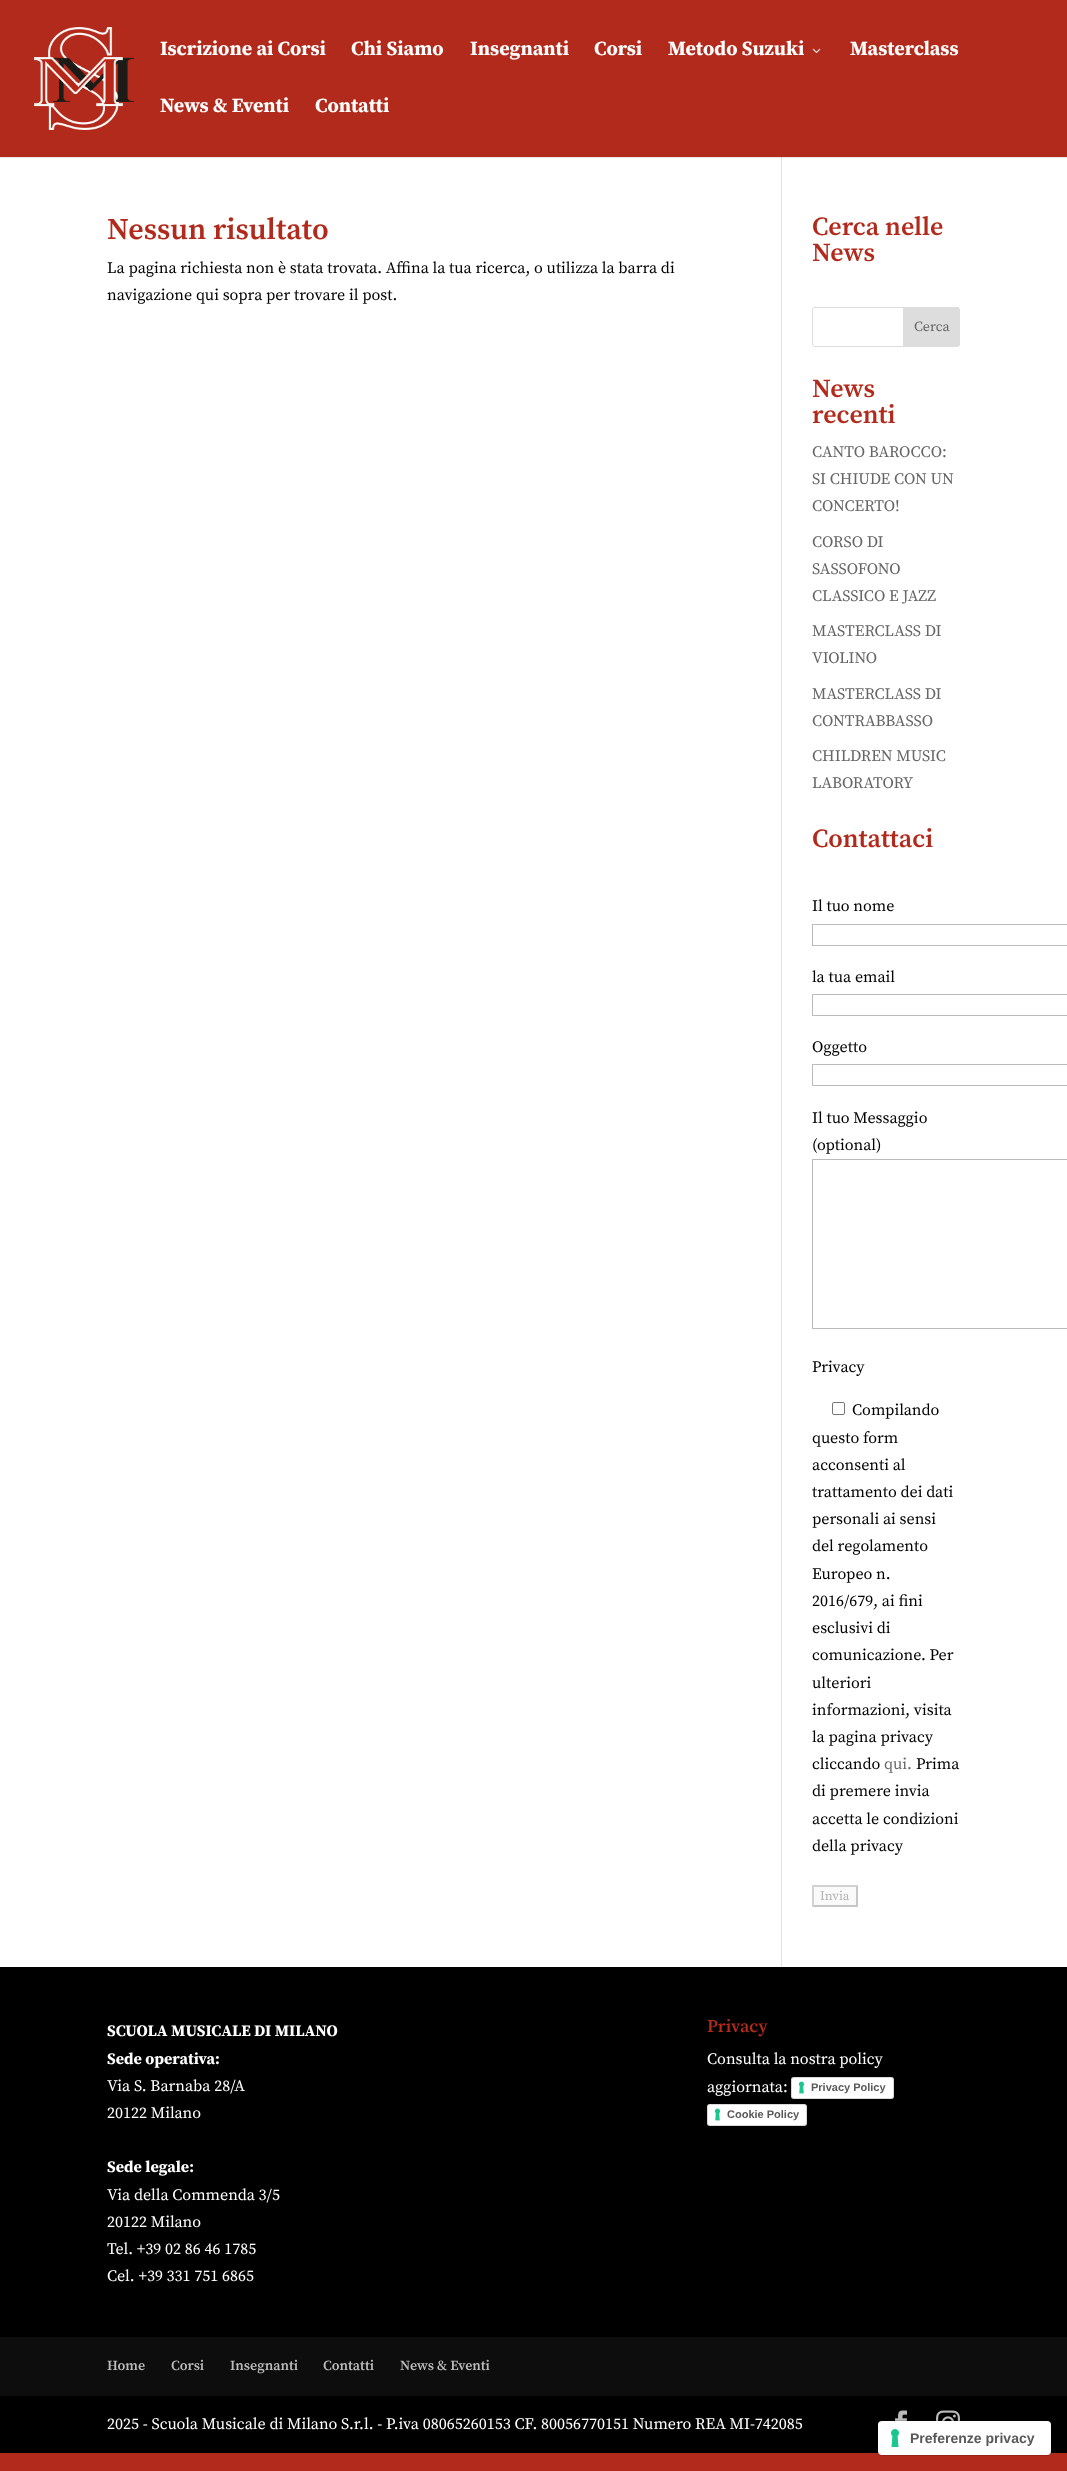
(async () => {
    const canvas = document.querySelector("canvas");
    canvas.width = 1067;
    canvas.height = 2471;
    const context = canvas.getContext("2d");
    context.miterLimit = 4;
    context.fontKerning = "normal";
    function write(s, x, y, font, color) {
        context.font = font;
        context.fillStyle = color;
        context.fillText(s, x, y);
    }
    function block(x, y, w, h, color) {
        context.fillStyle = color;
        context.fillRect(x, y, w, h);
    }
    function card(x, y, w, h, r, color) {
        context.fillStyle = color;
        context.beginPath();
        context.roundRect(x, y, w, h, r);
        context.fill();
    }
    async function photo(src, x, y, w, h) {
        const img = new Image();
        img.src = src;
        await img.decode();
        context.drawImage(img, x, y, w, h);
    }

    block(0, 0, 1067, 2471, "rgb(178, 42, 27)");
    await photo("media/1.png", 34, 27, 100, 103);
    write("Iscrizione ai Corsi", 160, 55, "bold 20px Source Serif Pro", "rgb(255, 255, 255)");
    write("Chi Siamo", 351, 55, "bold 20px Source Serif Pro", "rgb(255, 255, 255)");
    write("Insegnanti", 470, 55, "bold 20px Source Serif Pro", "rgb(255, 255, 255)");
    write("Corsi", 594, 55, "bold 20px Source Serif Pro", "rgb(255, 255, 255)");
    write("Metodo Suzuki", 668, 55, "bold 20px Source Serif Pro", "rgb(255, 255, 255)");
    await photo("media/2.png", 812, 48, 9, 5);
    write("Masterclass", 850, 55, "bold 20px Source Serif Pro", "rgb(255, 255, 255)");
    write("News & Eventi", 160, 112, "bold 20px Source Serif Pro", "rgb(255, 255, 255)");
    write("Contatti", 315, 112, "bold 20px Source Serif Pro", "rgb(255, 255, 255)");
    block(0, 158, 1067, 1809, "rgb(255, 255, 255)");
    block(0, 157, 1067, 1, "rgb(230, 230, 230)");
    block(781, 157, 1, 1810, "rgb(226, 226, 226)");
    block(781, 157, 1, 1, "rgb(203, 203, 203)");
    write("Nessun risultato", 107, 239, "600 30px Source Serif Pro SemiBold", "rgb(178, 42, 27)");
    write("La pagina richiesta non è stata trovata. Affina la tua ricerca, o utilizza la barra di", 107, 273, "16px Source Serif Pro", "rgb(0, 0, 0)");
    write("navigazione qui sopra per trovare il post.", 107, 300, "16px Source Serif Pro", "rgb(0, 0, 0)");
    write("Cerca nelle", 812, 235, "600 26px Source Serif Pro SemiBold", "rgb(178, 42, 27)");
    write("News", 812, 261, "600 26px Source Serif Pro SemiBold", "rgb(178, 42, 27)");
    context.beginPath();
    context.roundRect(812.5, 307.5, 147, 39, 2.5);
    context.strokeStyle = "rgb(221, 221, 221)";
    context.stroke();
    context.fillStyle = "rgb(221, 221, 221)";
    context.beginPath();
    context.roundRect(903.5, 307.5, 56, 39, [0, 2.5, 2.5, 0]);
    context.fill();
    context.stroke();
    write("Cerca", 914, 331, "14px Source Serif Pro", "rgb(102, 102, 102)");
    write("News", 812, 397, "600 26px Source Serif Pro SemiBold", "rgb(178, 42, 27)");
    write("recenti", 812, 423, "600 26px Source Serif Pro SemiBold", "rgb(178, 42, 27)");
    write("CANTO BAROCCO:", 812, 457, "16px Source Serif Pro", "rgb(102, 102, 102)");
    write("SI CHIUDE CON UN", 812, 484, "16px Source Serif Pro", "rgb(102, 102, 102)");
    write("CONCERTO!", 812, 511, "16px Source Serif Pro", "rgb(102, 102, 102)");
    write("CORSO DI", 812, 547, "16px Source Serif Pro", "rgb(102, 102, 102)");
    write("SASSOFONO", 812, 574, "16px Source Serif Pro", "rgb(102, 102, 102)");
    write("CLASSICO E JAZZ", 812, 601, "16px Source Serif Pro", "rgb(102, 102, 102)");
    write("MASTERCLASS DI", 812, 636, "16px Source Serif Pro", "rgb(102, 102, 102)");
    write("VIOLINO", 812, 663, "16px Source Serif Pro", "rgb(102, 102, 102)");
    write("MASTERCLASS DI", 812, 699, "16px Source Serif Pro", "rgb(102, 102, 102)");
    write("CONTRABBASSO", 812, 726, "16px Source Serif Pro", "rgb(102, 102, 102)");
    write("CHILDREN MUSIC", 812, 761, "16px Source Serif Pro", "rgb(102, 102, 102)");
    write("LABORATORY", 812, 788, "16px Source Serif Pro", "rgb(102, 102, 102)");
    write("Contattaci", 812, 847, "600 26px Source Serif Pro SemiBold", "rgb(178, 42, 27)");
    write("Il tuo nome", 812, 911, "16px Source Serif Pro", "rgb(0, 0, 0)");
    context.strokeStyle = "rgb(187, 187, 187)";
    context.strokeRect(812.5, 924.5, 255, 21);
    write("la tua email", 812, 982, "16px Source Serif Pro", "rgb(0, 0, 0)");
    context.strokeRect(812.5, 994.5, 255, 21);
    write("Oggetto", 812, 1052, "16px Source Serif Pro", "rgb(0, 0, 0)");
    context.strokeRect(812.5, 1064.5, 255, 21);
    write("Il tuo Messaggio", 812, 1123, "16px Source Serif Pro", "rgb(0, 0, 0)");
    write("(optional)", 812, 1150, "16px Source Serif Pro", "rgb(0, 0, 0)");
    context.strokeRect(812.5, 1159.5, 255, 169);
    write("Privacy", 812, 1372, "16px Source Serif Pro", "rgb(0, 0, 0)");
    context.beginPath();
    context.roundRect(832.5, 1402.5, 12, 12, 1.5);
    context.strokeStyle = "rgb(118, 118, 118)";
    context.stroke();
    write("Compilando", 852, 1415, "16px Source Serif Pro", "rgb(0, 0, 0)");
    write("questo form", 812, 1443, "16px Source Serif Pro", "rgb(0, 0, 0)");
    write("acconsenti al", 812, 1470, "16px Source Serif Pro", "rgb(0, 0, 0)");
    write("trattamento dei dati", 812, 1497, "16px Source Serif Pro", "rgb(0, 0, 0)");
    write("personali ai sensi", 812, 1524, "16px Source Serif Pro", "rgb(0, 0, 0)");
    write("del regolamento", 812, 1551, "16px Source Serif Pro", "rgb(0, 0, 0)");
    write("Europeo n.", 812, 1579, "16px Source Serif Pro", "rgb(0, 0, 0)");
    write("2016/679, ai fini", 812, 1606, "16px Source Serif Pro", "rgb(0, 0, 0)");
    write("esclusivi di", 812, 1633, "16px Source Serif Pro", "rgb(0, 0, 0)");
    write("comunicazione. Per", 812, 1660, "16px Source Serif Pro", "rgb(0, 0, 0)");
    write("ulteriori", 812, 1688, "16px Source Serif Pro", "rgb(0, 0, 0)");
    write("informazioni, visita", 812, 1715, "16px Source Serif Pro", "rgb(0, 0, 0)");
    write("la pagina privacy", 812, 1742, "16px Source Serif Pro", "rgb(0, 0, 0)");
    write("cliccando", 812, 1769, "16px Source Serif Pro", "rgb(0, 0, 0)");
    write("qui.", 884, 1769, "16px Source Serif Pro", "rgb(102, 102, 102)");
    write("Prima", 916, 1769, "16px Source Serif Pro", "rgb(0, 0, 0)");
    write("di premere invia", 812, 1796, "16px Source Serif Pro", "rgb(0, 0, 0)");
    write("accetta le condizioni", 812, 1824, "16px Source Serif Pro", "rgb(0, 0, 0)");
    write("della privacy", 812, 1851, "16px Source Serif Pro", "rgb(0, 0, 0)");
    block(812, 1885, 46, 22, "rgb(250, 250, 250)");
    context.fillStyle = "rgb(210, 210, 210)";
    context.beginPath();
    context.moveTo(812, 1885);
    context.lineTo(858, 1885);
    context.lineTo(856, 1887);
    context.lineTo(814, 1887);
    context.closePath();
    context.fill();
    context.fillStyle = "rgba(79, 79, 79, 0.3)";
    context.beginPath();
    context.moveTo(858, 1885);
    context.lineTo(858, 1907);
    context.lineTo(856, 1905);
    context.lineTo(856, 1887);
    context.closePath();
    context.fill();
    context.beginPath();
    context.moveTo(858, 1907);
    context.lineTo(812, 1907);
    context.lineTo(814, 1905);
    context.lineTo(856, 1905);
    context.closePath();
    context.fill();
    context.fillStyle = "rgba(118, 118, 118, 0.3)";
    context.beginPath();
    context.moveTo(812, 1907);
    context.lineTo(812, 1885);
    context.lineTo(814, 1887);
    context.lineTo(814, 1905);
    context.closePath();
    context.fill();
    write("Invia", 820, 1900, "13px Source Serif Pro", "rgb(180, 180, 180)");
    block(0, 1967, 1067, 486, "rgb(0, 0, 0)");
    write("SCUOLA MUSICALE DI MILANO", 107, 2036, "bold 16px Source Serif Pro", "rgb(255, 255, 255)");
    write("Sede operativa:", 107, 2064, "bold 16px Source Serif Pro", "rgb(255, 255, 255)");
    write("Via S. Barnaba 28/A", 107, 2091, "16px Source Serif Pro", "rgb(255, 255, 255)");
    write("20122 Milano", 107, 2118, "16px Source Serif Pro", "rgb(255, 255, 255)");
    write("Sede legale:", 107, 2172, "bold 16px Source Serif Pro", "rgb(255, 255, 255)");
    write("Via della Commenda 3/5", 107, 2200, "16px Source Serif Pro", "rgb(255, 255, 255)");
    write("20122 Milano", 107, 2227, "16px Source Serif Pro", "rgb(255, 255, 255)");
    write("Tel. +39 02 86 46 1785", 107, 2254, "16px Source Serif Pro", "rgb(255, 255, 255)");
    write("Cel. +39 331 751 6865", 107, 2281, "16px Source Serif Pro", "rgb(255, 255, 255)");
    write("Privacy", 707, 2032, "600 18px Source Serif Pro SemiBold", "rgb(178, 42, 27)");
    write("Consulta la nostra policy", 707, 2064, "16px Source Serif Pro", "rgb(255, 255, 255)");
    write("aggiornata:", 707, 2092, "16px Source Serif Pro", "rgb(255, 255, 255)");
    card(791, 2077, 103, 22, 3, "rgb(255, 255, 255)");
    await photo("media/3.png", 798, 2081, 7, 13);
    context.beginPath();
    context.roundRect(791.5, 2077.5, 102, 21, 2.5);
    context.strokeStyle = "rgba(0, 0, 0, 0.15)";
    context.stroke();
    write("Privacy Policy", 811, 2091, "bold 11px Liberation Sans", "rgb(89, 89, 89)");
    card(707, 2104, 100, 22, 3, "rgb(255, 255, 255)");
    await photo("media/3.png", 714, 2108, 7, 13);
    context.beginPath();
    context.roundRect(707.5, 2104.5, 99, 21, 2.5);
    context.stroke();
    write("Cookie Policy", 727, 2118, "bold 11px Liberation Sans", "rgb(89, 89, 89)");
    block(0, 2337, 1067, 59, "rgb(13, 13, 13)");
    write("Home", 107, 2370, "600 14px Source Serif Pro SemiBold", "rgb(187, 187, 187)");
    write("Corsi", 171, 2370, "600 14px Source Serif Pro SemiBold", "rgb(187, 187, 187)");
    write("Insegnanti", 230, 2370, "600 14px Source Serif Pro SemiBold", "rgb(187, 187, 187)");
    write("Contatti", 323, 2370, "600 14px Source Serif Pro SemiBold", "rgb(187, 187, 187)");
    write("News & Eventi", 400, 2370, "600 14px Source Serif Pro SemiBold", "rgb(187, 187, 187)");
    await photo("media/4.png", 895, 2410, 13, 11);
    await photo("media/5.png", 936, 2410, 24, 11);
    write("2025 - Scuola Musicale di Milano S.r.l. - P.iva 08065260153 CF. 80056770151 Numero REA MI-742085", 107, 2429, "16px Source Serif Pro", "rgb(255, 255, 255)");
    context.beginPath();
    context.roundRect(877.5, 2420.5, 174, 35, 4.5);
    context.stroke();
    card(878, 2421, 173, 34, 4, "rgb(255, 255, 255)");
    await photo("media/6.png", 891, 2429, 8, 18);
    write("Preferenze privacy", 910, 2443, "bold 14px Liberation Sans", "rgb(89, 89, 89)");
})();
